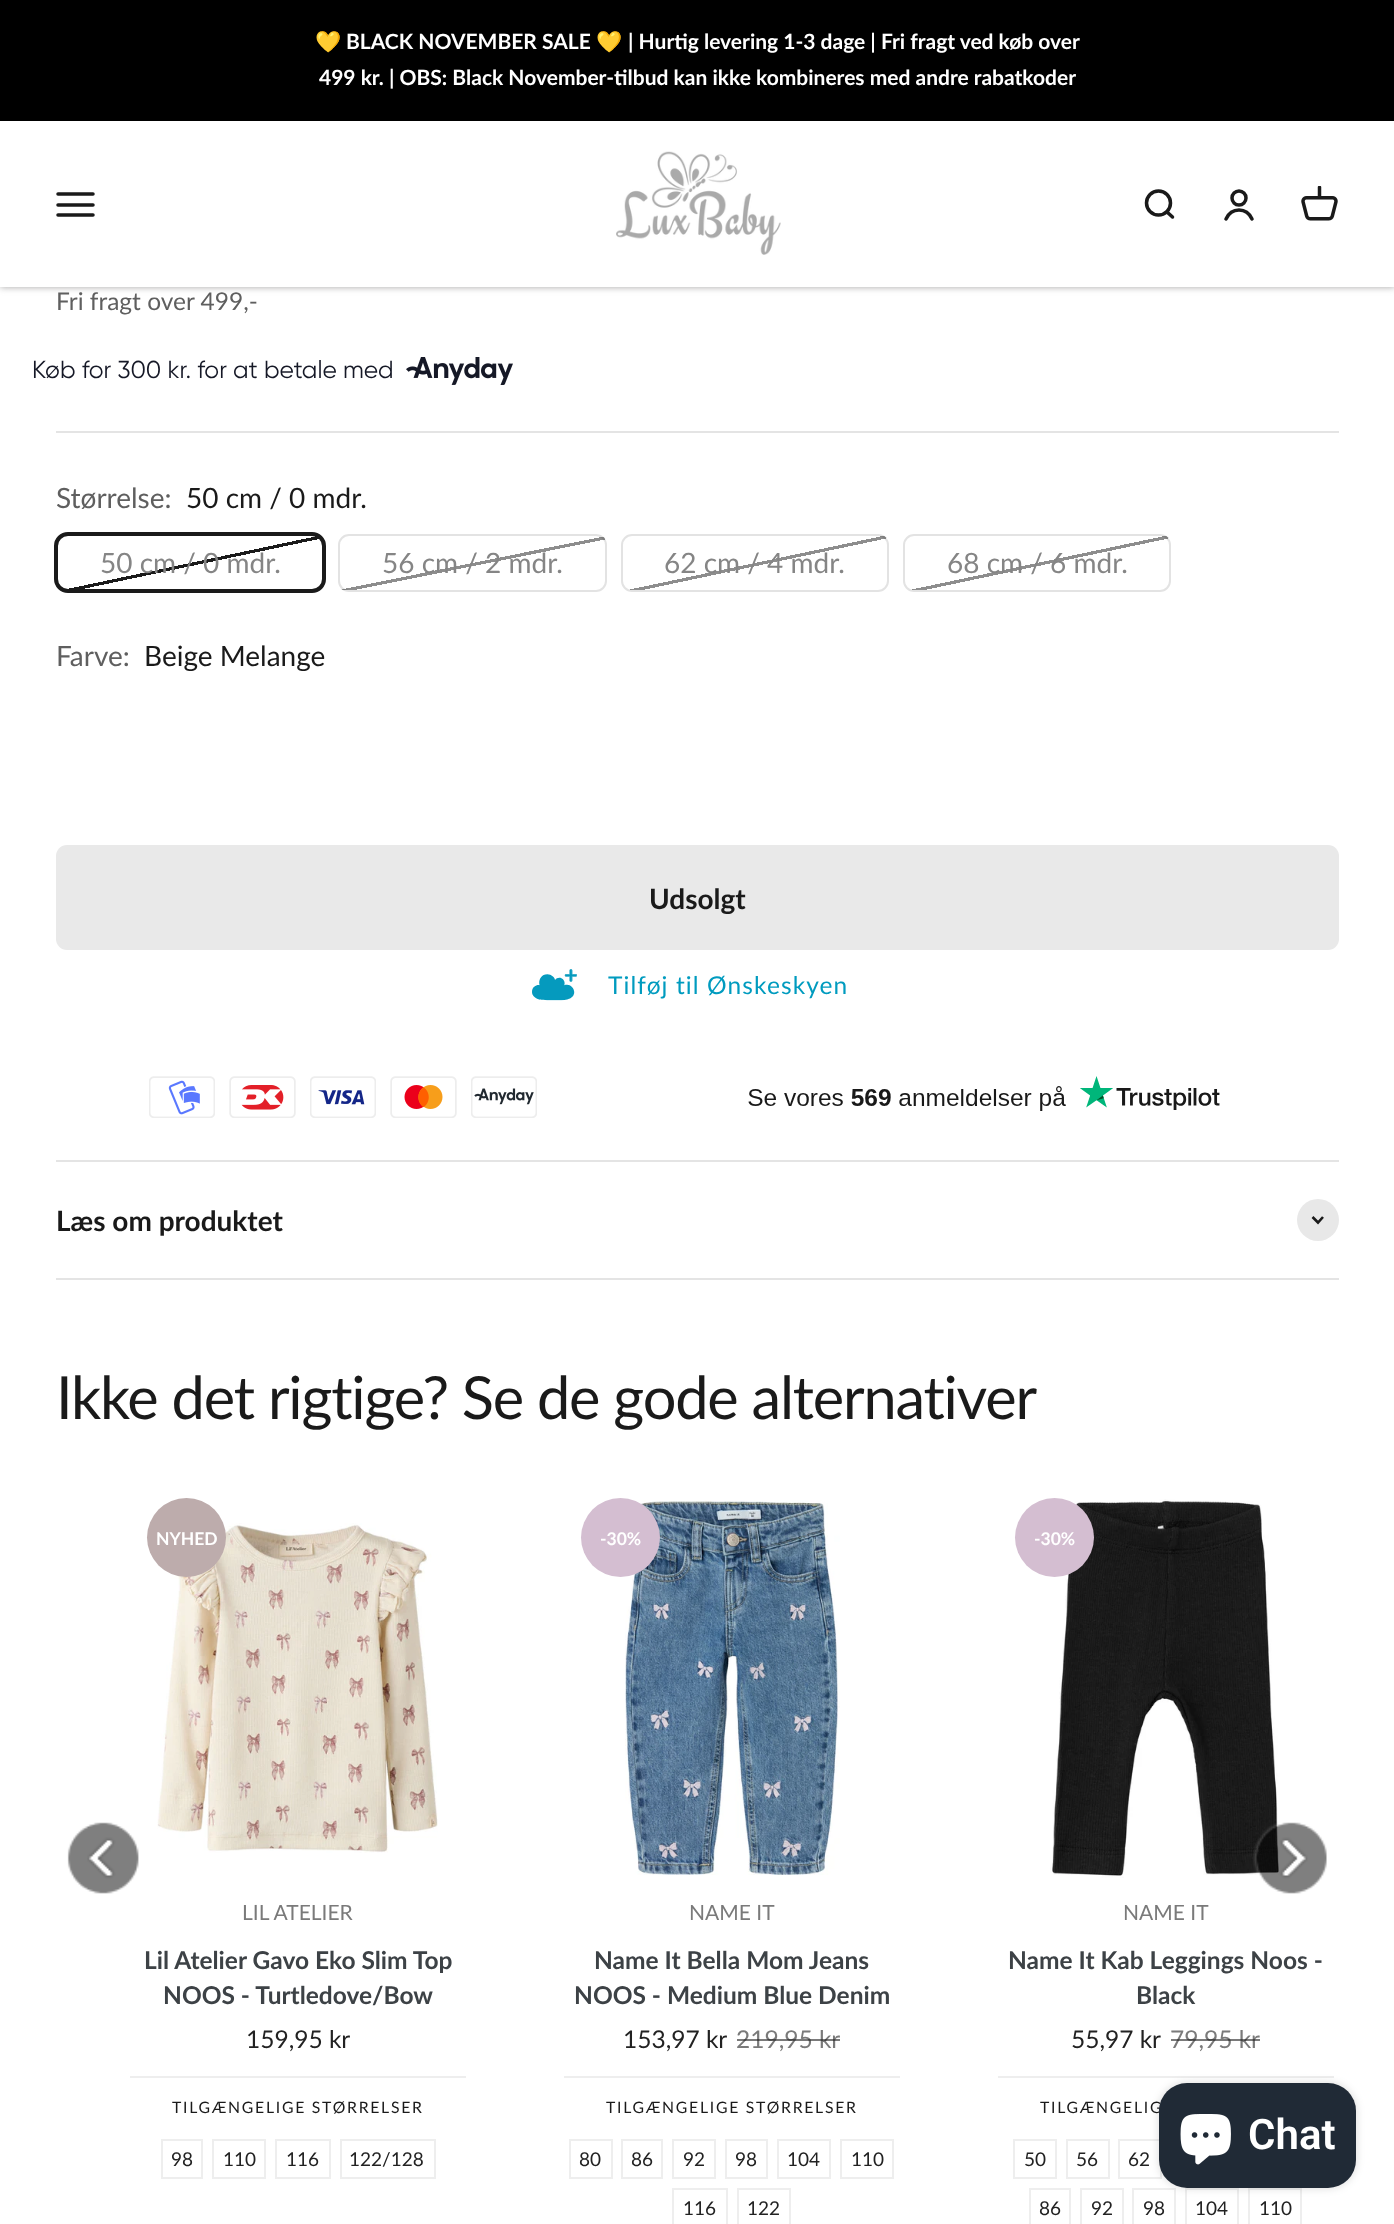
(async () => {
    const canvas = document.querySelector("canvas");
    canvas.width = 1394;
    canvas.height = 2224;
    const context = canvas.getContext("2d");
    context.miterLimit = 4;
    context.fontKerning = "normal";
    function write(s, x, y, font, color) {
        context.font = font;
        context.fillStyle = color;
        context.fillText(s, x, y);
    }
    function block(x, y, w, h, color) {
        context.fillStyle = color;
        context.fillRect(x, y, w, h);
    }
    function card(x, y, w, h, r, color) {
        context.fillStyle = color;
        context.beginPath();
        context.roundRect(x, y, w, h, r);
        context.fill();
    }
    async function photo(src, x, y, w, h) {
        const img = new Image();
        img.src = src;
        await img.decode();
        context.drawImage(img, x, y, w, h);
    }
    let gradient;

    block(0, 0, 1394, 2224, "rgb(255, 255, 255)");
    context.fillStyle = "rgb(166, 165, 165)";
    context.filter = "blur(3.5px)";
    context.beginPath();
    context.rect(0, 121, 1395, 166);
    context.fill();
    context.filter = "none";
    block(0, 0, 1394, 121, "rgb(0, 0, 0)");
    write("💛", 315, 49, "bold 21px Noto Color Emoji", "rgb(255, 255, 255)");
    write("BLACK NOVEMBER SALE", 346, 49, "bold 21px Lato", "rgb(255, 255, 255)");
    write("💛", 596, 49, "bold 21px Noto Color Emoji", "rgb(255, 255, 255)");
    write("| Hurtig levering 1-3 dage | Fri fragt ved køb over", 628, 49, "bold 21px Lato", "rgb(255, 255, 255)");
    write("499 kr. | OBS: Black November-tilbud kan ikke kombineres med andre rabatkoder", 319, 85, "bold 21px Lato", "rgb(255, 255, 255)");
    block(0, 121, 1394, 166, "rgb(255, 255, 255)");
    context.beginPath();
    context.moveTo(58, 194);
    context.lineTo(93, 194);
    context.moveTo(58, 205);
    context.lineTo(93, 205);
    context.moveTo(58, 215);
    context.lineTo(93, 215);
    context.strokeStyle = "rgb(26, 26, 26)";
    context.lineWidth = 3.5;
    context.lineCap = "round";
    context.stroke();
    await photo("media/1.png", 616, 151, 165, 104);
    context.beginPath();
    context.arc(1158.5, 203, 12, 0, Math.PI * 2);
    context.stroke();
    context.beginPath();
    context.moveTo(1167, 212);
    context.lineTo(1172.5, 217);
    context.lineJoin = "round";
    context.stroke();
    context.beginPath();
    context.arc(1239, 198, 7, 0, Math.PI * 2);
    context.stroke();
    context.beginPath();
    context.moveTo(1226, 219);
    context.bezierCurveTo(1231.5, 207, 1246.5, 207, 1252, 219);
    context.lineJoin = "miter";
    context.stroke();
    await photo("media/2.png", 1301, 186, 37, 35);
    write("Fri fragt over 499,-", 56, 310, "24.5px Lato", "rgb(95, 95, 95)");
    write("Køb for 300 kr. for at betale med", 32, 378, "24.5px Gilroy", "rgb(21, 24, 38)");
    await photo("media/3.png", 406, 357, 107, 28);
    block(56, 431, 1283, 2, "rgb(228, 228, 228)");
    write("Størrelse:", 56, 508, "28px Lato", "rgb(95, 95, 95)");
    write("50 cm / 0 mdr.", 186, 508, "28px Lato", "rgb(26, 26, 26)");
    context.save();
    context.beginPath();
    context.roundRect(56, 534, 268, 58, 11);
    context.clip();
    gradient = context.createLinearGradient(179, 511, 201, 615);
    gradient.addColorStop(0.5, "rgb(255, 255, 255)");
    gradient.addColorStop(0.5, "rgb(26, 26, 26)");
    gradient.addColorStop(0.53, "rgb(26, 26, 26)");
    gradient.addColorStop(0.53, "rgb(255, 255, 255)");
    context.fillStyle = gradient;
    context.fillRect(58, 536, 264, 54);
    context.restore();
    context.beginPath();
    context.roundRect(57, 535, 266, 56, 10);
    context.strokeStyle = "rgba(26, 26, 26, 0.12)";
    context.lineWidth = 2;
    context.stroke();
    context.beginPath();
    context.roundRect(56, 534, 268, 57, 12);
    context.strokeStyle = "rgb(26, 26, 26)";
    context.lineWidth = 4;
    context.stroke();
    write("50 cm / 0 mdr.", 100, 573, "28px Lato", "rgb(133, 133, 133)");
    context.save();
    context.beginPath();
    context.roundRect(338, 534, 269, 58, 11);
    context.clip();
    gradient = context.createLinearGradient(462, 511, 483, 615);
    gradient.addColorStop(0.5, "rgb(255, 255, 255)");
    gradient.addColorStop(0.5, "rgb(141, 141, 141)");
    gradient.addColorStop(0.53, "rgb(141, 141, 141)");
    gradient.addColorStop(0.53, "rgb(255, 255, 255)");
    context.fillStyle = gradient;
    context.fillRect(340, 536, 266, 54);
    context.restore();
    context.beginPath();
    context.roundRect(339, 535, 267, 56, 10);
    context.strokeStyle = "rgba(26, 26, 26, 0.12)";
    context.lineWidth = 2;
    context.stroke();
    write("56 cm / 2 mdr.", 382, 573, "28px Lato", "rgb(133, 133, 133)");
    context.save();
    context.beginPath();
    context.roundRect(621, 534, 268, 58, 11);
    context.clip();
    gradient = context.createLinearGradient(744, 511, 766, 615);
    gradient.addColorStop(0.5, "rgb(255, 255, 255)");
    gradient.addColorStop(0.5, "rgb(141, 141, 141)");
    gradient.addColorStop(0.53, "rgb(141, 141, 141)");
    gradient.addColorStop(0.53, "rgb(255, 255, 255)");
    context.fillStyle = gradient;
    context.fillRect(623, 536, 264, 54);
    context.restore();
    context.beginPath();
    context.roundRect(622, 535, 266, 56, 10);
    context.stroke();
    write("62 cm / 4 mdr.", 664, 573, "28px Lato", "rgb(133, 133, 133)");
    context.save();
    context.beginPath();
    context.roundRect(903, 534, 268, 58, 11);
    context.clip();
    gradient = context.createLinearGradient(1026, 511, 1048, 615);
    gradient.addColorStop(0.5, "rgb(255, 255, 255)");
    gradient.addColorStop(0.5, "rgb(141, 141, 141)");
    gradient.addColorStop(0.53, "rgb(141, 141, 141)");
    gradient.addColorStop(0.53, "rgb(255, 255, 255)");
    context.fillStyle = gradient;
    context.fillRect(905, 536, 264, 54);
    context.restore();
    context.beginPath();
    context.roundRect(904, 535, 266, 56, 10);
    context.stroke();
    write("68 cm / 6 mdr.", 947, 573, "28px Lato", "rgb(133, 133, 133)");
    write("Farve:", 56, 666, "28px Lato", "rgb(95, 95, 95)");
    write("Beige Melange", 144, 666, "28px Lato", "rgb(26, 26, 26)");
    card(56, 845, 1283, 105, 11, "rgb(233, 233, 233)");
    write("Udsolgt", 649, 909, "bold 28px Lato", "rgb(26, 26, 26)");
    await photo("media/4.png", 532, 969, 45, 32);
    context.letterSpacing = "1.1px";
    write("Tilføj til Ønskeskyen", 608, 994, "24.5px Lato", "rgb(0, 155, 191)");
    await photo("media/5.png", 149, 1076, 66, 42);
    await photo("media/6.png", 229, 1076, 67, 42);
    await photo("media/7.png", 310, 1076, 66, 42);
    await photo("media/8.png", 390, 1076, 67, 42);
    await photo("media/9.png", 471, 1076, 66, 42);
    await photo("media/10.png", 748, 1076, 472, 35);
    block(56, 1160, 1283, 2, "rgb(228, 228, 228)");
    block(56, 1278, 1283, 2, "rgb(228, 228, 228)");
    context.letterSpacing = "0px";
    write("Læs om produktet", 56, 1231, "bold 28px Lato", "rgb(26, 26, 26)");
    context.fillStyle = "rgb(232, 232, 232)";
    context.beginPath();
    context.arc(1318, 1220, 21, 0, Math.PI * 2);
    context.fill();
    context.beginPath();
    context.moveTo(1312.5, 1217);
    context.lineTo(1318, 1222.5);
    context.lineTo(1323, 1217);
    context.strokeStyle = "rgb(26, 26, 26)";
    context.lineWidth = 2.6;
    context.lineCap = "butt";
    context.stroke();
    context.letterSpacing = "-1.2px";
    write("Ikke det rigtige? Se de gode alternativer", 56, 1419, "59.5px Lato", "rgb(26, 26, 26)");
    await photo("media/11.png", 67, 1822, 72, 72);
    await photo("media/12.png", 157, 1523, 281, 330);
    context.fillStyle = "rgb(189, 172, 172)";
    context.beginPath();
    context.arc(186.5, 1537.5, 39.5, 0, Math.PI * 2);
    context.fill();
    context.letterSpacing = "0px";
    write("NYHED", 156, 1545, "bold 17.5px Lato", "rgb(255, 255, 255)");
    write("LIL ATELIER", 242, 1920, "21px Lato", "rgb(122, 122, 122)");
    write("Lil Atelier Gavo Eko Slim Top", 144, 1969, "bold 24.5px Lato", "rgb(61, 66, 70)");
    write("NOOS - Turtledove/Bow", 163, 2004, "bold 24.5px Lato", "rgb(61, 66, 70)");
    write("159,95 kr", 246, 2048, "24.5px Lato", "rgb(34, 34, 34)");
    block(130, 2076, 336, 2, "rgb(238, 238, 238)");
    context.letterSpacing = "1.75px";
    write("TILGÆNGELIGE STØRRELSER", 172, 2113, "15.75px Lato", "rgb(26, 26, 26)");
    context.strokeStyle = "rgb(238, 238, 238)";
    context.lineWidth = 2;
    context.strokeRect(162, 2140, 40, 38);
    context.letterSpacing = "0px";
    write("98", 171, 2166, "19px Lato", "rgb(34, 34, 34)");
    context.strokeRect(213, 2140, 52, 38);
    write("110", 223, 2166, "19px Lato", "rgb(34, 34, 34)");
    context.strokeRect(276, 2140, 54, 38);
    write("116", 286, 2166, "19px Lato", "rgb(34, 34, 34)");
    context.strokeRect(341, 2140, 94, 38);
    write("122/128", 349, 2166, "19px Lato", "rgb(34, 34, 34)");
    await photo("media/13.png", 625, 1500, 215, 375);
    context.fillStyle = "rgb(212, 190, 209)";
    context.beginPath();
    context.arc(620.5, 1537.5, 39.5, 0, Math.PI * 2);
    context.fill();
    write("-30%", 600, 1545, "bold 17.5px Lato", "rgb(255, 255, 255)");
    write("NAME IT", 689, 1920, "21px Lato", "rgb(122, 122, 122)");
    write("Name It Bella Mom Jeans", 594, 1969, "bold 24.5px Lato", "rgb(61, 66, 70)");
    write("NOOS - Medium Blue Denim", 574, 2004, "bold 24.5px Lato", "rgb(61, 66, 70)");
    write("153,97 kr", 623, 2048, "24.5px Lato", "rgb(34, 34, 34)");
    write("219,95 kr", 736, 2048, "24.5px Lato", "rgb(122, 122, 122)");
    block(737, 2039, 103, 2, "rgba(34, 34, 34, 0.6)");
    block(564, 2076, 336, 2, "rgb(238, 238, 238)");
    context.letterSpacing = "1.75px";
    write("TILGÆNGELIGE STØRRELSER", 606, 2113, "15.75px Lato", "rgb(26, 26, 26)");
    context.strokeRect(570, 2140, 42, 38);
    context.letterSpacing = "0px";
    write("80", 579, 2166, "19px Lato", "rgb(34, 34, 34)");
    context.strokeRect(622, 2140, 40, 38);
    write("86", 631, 2166, "19px Lato", "rgb(34, 34, 34)");
    context.strokeRect(673, 2140, 42, 38);
    write("92", 683, 2166, "19px Lato", "rgb(34, 34, 34)");
    context.strokeRect(726, 2140, 41, 38);
    write("98", 735, 2166, "19px Lato", "rgb(34, 34, 34)");
    context.strokeRect(778, 2140, 52, 38);
    write("104", 787, 2166, "19px Lato", "rgb(34, 34, 34)");
    context.strokeRect(841, 2140, 52, 38);
    write("110", 851, 2166, "19px Lato", "rgb(34, 34, 34)");
    context.strokeRect(673, 2189, 54, 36);
    write("116", 683, 2215, "19px Lato", "rgb(34, 34, 34)");
    context.strokeRect(738, 2189, 52, 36);
    write("122", 747, 2215, "19px Lato", "rgb(34, 34, 34)");
    await photo("media/14.png", 1050, 1499, 230, 379);
    context.fillStyle = "rgb(212, 190, 209)";
    context.beginPath();
    context.arc(1054.5, 1537.5, 39.5, 0, Math.PI * 2);
    context.fill();
    write("-30%", 1034, 1545, "bold 17.5px Lato", "rgb(255, 255, 255)");
    write("NAME IT", 1123, 1920, "21px Lato", "rgb(122, 122, 122)");
    write("Name It Kab Leggings Noos -", 1008, 1969, "bold 24.5px Lato", "rgb(61, 66, 70)");
    write("Black", 1136, 2004, "bold 24.5px Lato", "rgb(61, 66, 70)");
    write("55,97 kr", 1071, 2048, "24.5px Lato", "rgb(34, 34, 34)");
    write("79,95 kr", 1170, 2048, "24.5px Lato", "rgb(122, 122, 122)");
    block(1171, 2039, 89, 2, "rgba(34, 34, 34, 0.6)");
    block(998, 2076, 336, 2, "rgb(238, 238, 238)");
    context.letterSpacing = "1.75px";
    write("TILGÆNGELIG", 1040, 2113, "15.75px Lato", "rgb(26, 26, 26)");
    context.strokeRect(1014, 2140, 42, 38);
    context.letterSpacing = "0px";
    write("50", 1024, 2166, "19px Lato", "rgb(34, 34, 34)");
    context.strokeRect(1067, 2140, 42, 38);
    write("56", 1076, 2166, "19px Lato", "rgb(34, 34, 34)");
    context.strokeRect(1119, 2140, 42, 38);
    write("62", 1128, 2166, "19px Lato", "rgb(34, 34, 34)");
    context.strokeRect(1030, 2189, 40, 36);
    write("86", 1039, 2215, "19px Lato", "rgb(34, 34, 34)");
    context.strokeRect(1081, 2189, 42, 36);
    write("92", 1091, 2215, "19px Lato", "rgb(34, 34, 34)");
    context.strokeRect(1133, 2189, 42, 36);
    write("98", 1143, 2215, "19px Lato", "rgb(34, 34, 34)");
    context.strokeRect(1186, 2189, 52, 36);
    write("104", 1195, 2215, "19px Lato", "rgb(34, 34, 34)");
    context.strokeRect(1249, 2189, 52, 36);
    write("110", 1259, 2215, "19px Lato", "rgb(34, 34, 34)");
    await photo("media/15.png", 1253, 1822, 74, 72);
    context.fillStyle = "rgba(0, 0, 0, 0.15)";
    context.filter = "blur(4.5px)";
    context.beginPath();
    context.roundRect(1159, 2083, 197, 105, 28);
    context.fill();
    context.filter = "none";
    card(1159, 2083, 197, 105, 28, "rgb(32, 42, 54)");
    await photo("media/16.png", 1180, 2114, 51, 51);
    write("Chat", 1248, 2149, "600 42px Roboto", "rgb(255, 255, 255)");
})();
